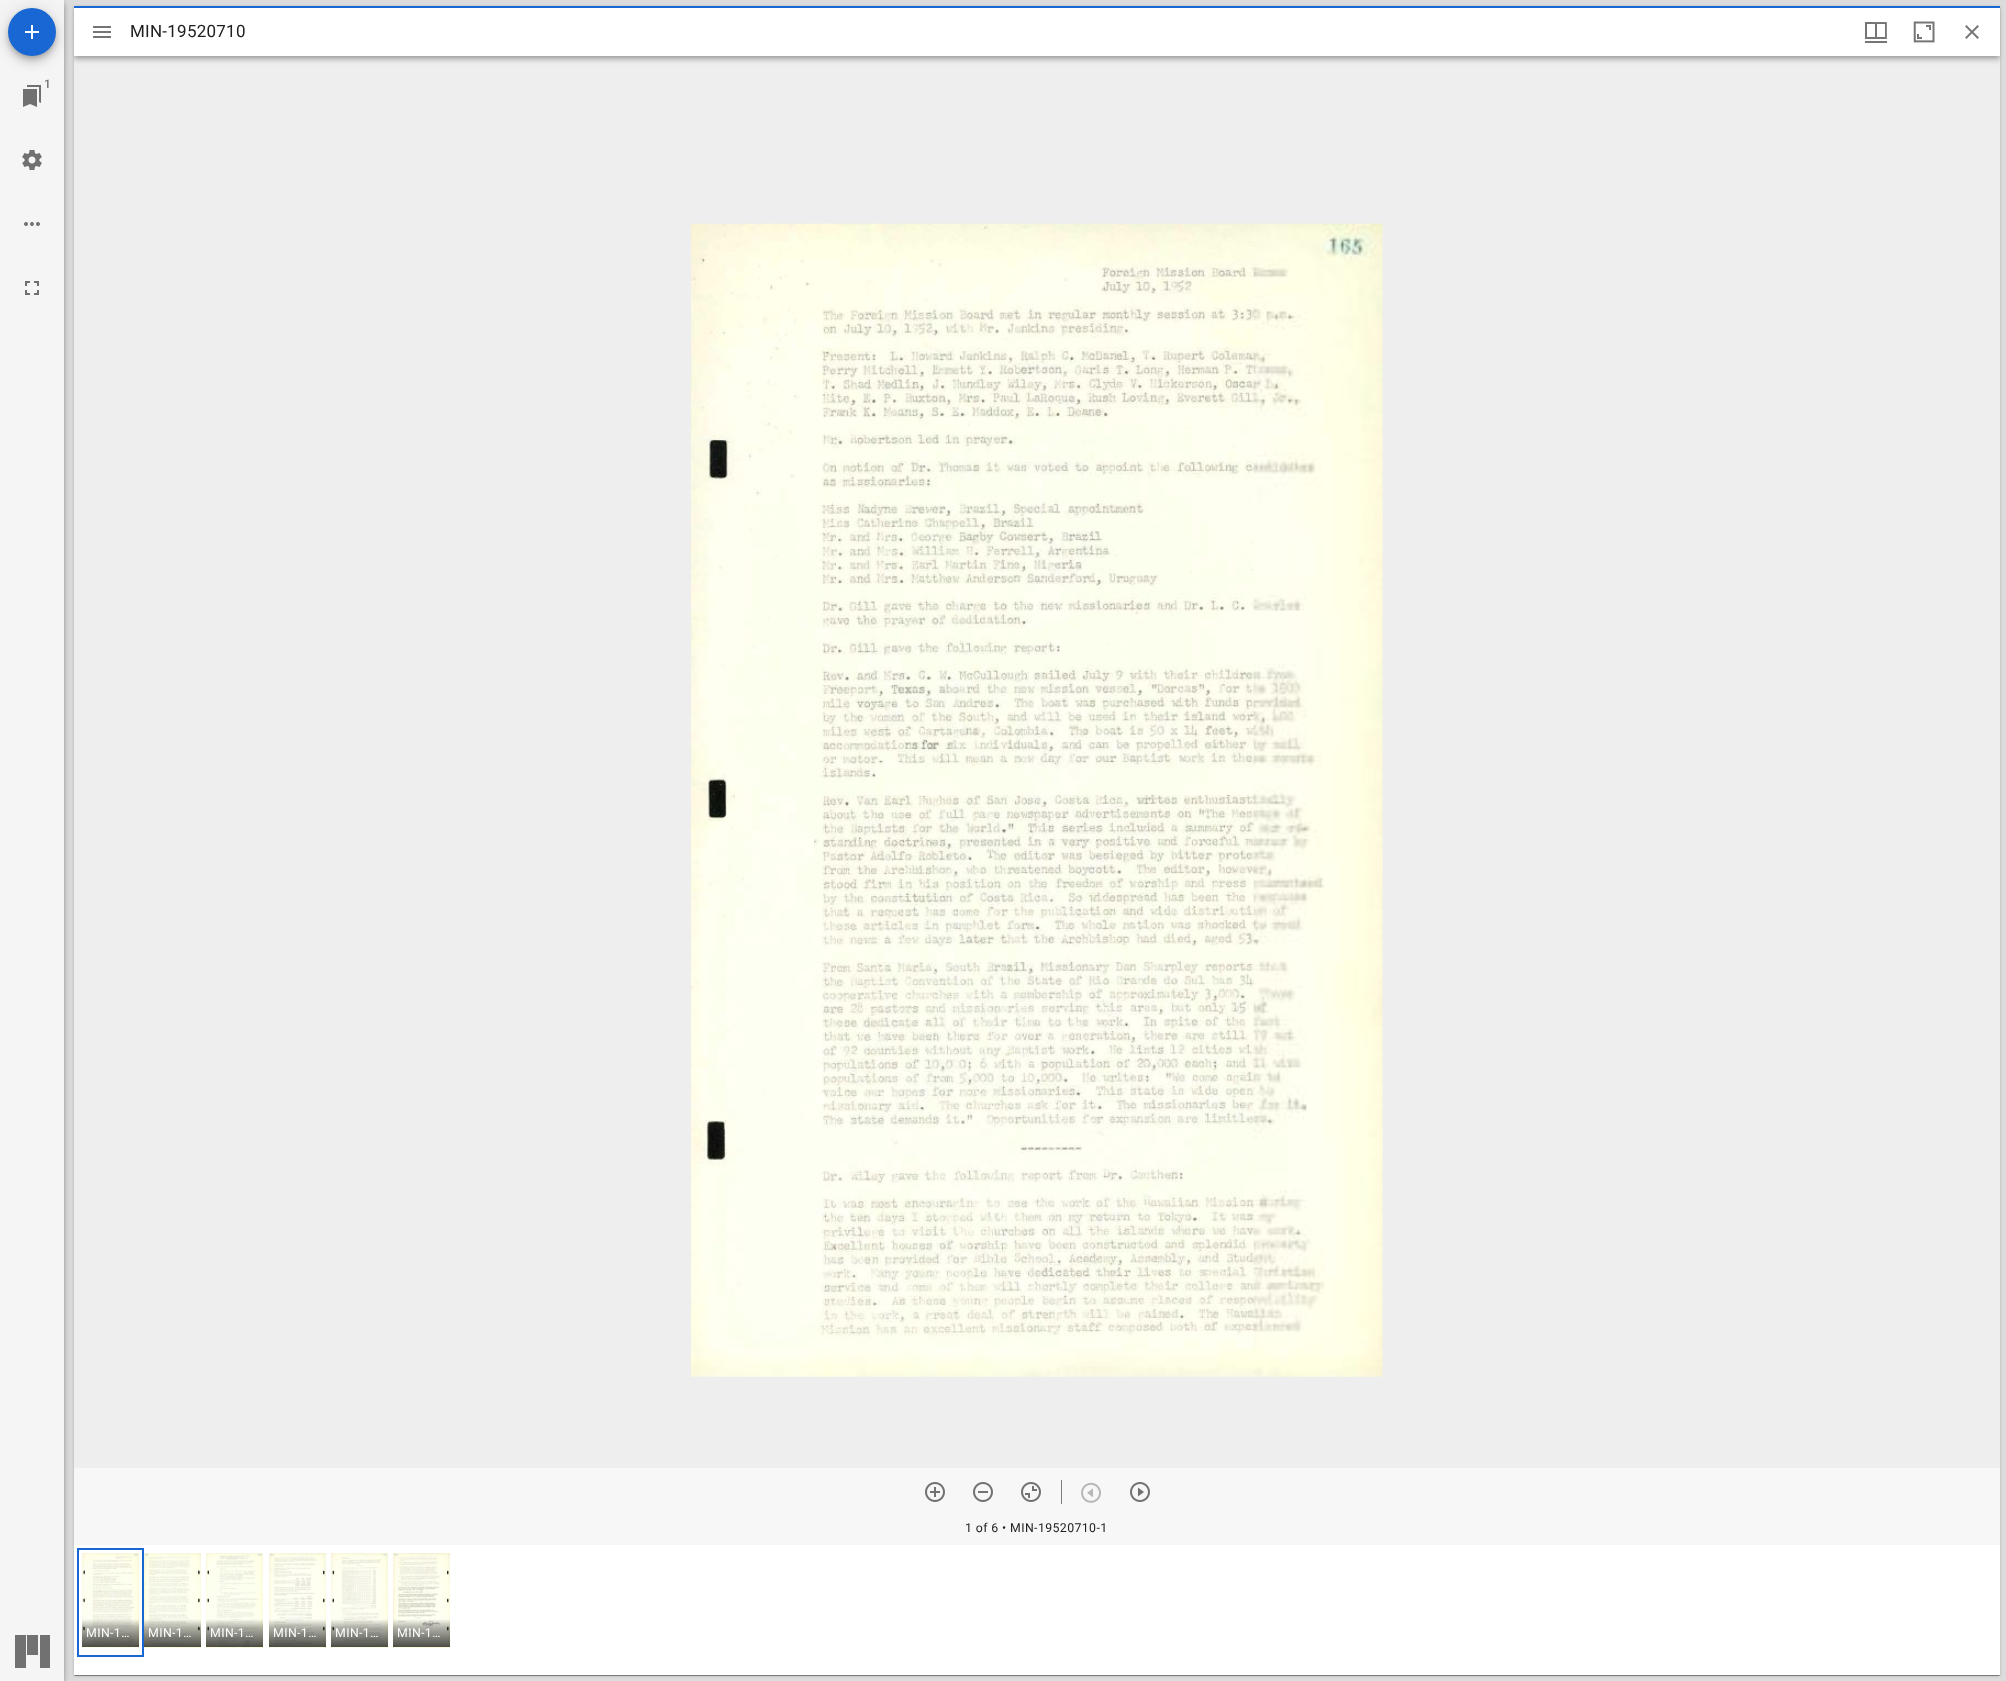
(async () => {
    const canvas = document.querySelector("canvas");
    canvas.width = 2006;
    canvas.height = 1681;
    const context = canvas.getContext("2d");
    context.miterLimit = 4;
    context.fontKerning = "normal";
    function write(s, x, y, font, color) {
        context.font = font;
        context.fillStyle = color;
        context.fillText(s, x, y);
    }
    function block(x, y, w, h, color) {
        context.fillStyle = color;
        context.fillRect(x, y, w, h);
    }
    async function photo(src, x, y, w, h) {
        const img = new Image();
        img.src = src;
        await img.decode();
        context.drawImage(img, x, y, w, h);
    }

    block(0, 0, 2006, 1681, "rgb(220, 220, 220)");
    context.fillStyle = "rgba(0, 0, 0, 0.2)";
    context.filter = "blur(0.5px)";
    context.beginPath();
    context.rect(75, 9, 1924, 1667);
    context.fill();
    context.filter = "none";
    context.filter = "blur(0.5px)";
    context.beginPath();
    context.rect(74, 7, 1926, 1669);
    context.fill();
    context.filter = "none";
    context.filter = "blur(1.5px)";
    context.beginPath();
    context.rect(74, 7, 1926, 1669);
    context.fill();
    context.filter = "none";
    block(74, 56, 1926, 1412, "rgb(238, 238, 238)");
    context.save();
    context.beginPath();
    context.rect(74, 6, 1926, 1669);
    context.clip();
    context.fillStyle = "rgba(0, 0, 0, 0.12)";
    context.filter = "blur(5px)";
    context.beginPath();
    context.rect(74, 7, 1926, 50);
    context.fill();
    context.filter = "none";
    context.fillStyle = "rgba(0, 0, 0, 0.14)";
    context.filter = "blur(2.5px)";
    context.beginPath();
    context.rect(74, 10, 1926, 50);
    context.fill();
    context.filter = "none";
    context.restore();
    context.fillStyle = "rgba(0, 0, 0, 0.2)";
    context.filter = "blur(2px)";
    context.beginPath();
    context.rect(75, 9, 1924, 48);
    context.fill();
    context.filter = "none";
    block(74, 8, 1926, 48, "rgb(255, 255, 255)");
    block(74, 6, 1926, 2, "rgb(25, 103, 210)");
    block(74, 1468, 1926, 77, "rgb(247, 247, 247)");
    block(74, 1545, 1926, 130, "rgb(255, 255, 255)");
    context.strokeStyle = "rgb(25, 103, 210)";
    context.lineWidth = 2;
    context.strokeRect(78, 1549, 65, 107);
    context.fillStyle = "rgba(0, 0, 0, 0.12)";
    context.filter = "blur(5px)";
    context.beginPath();
    context.rect(0, 1, 64, 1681);
    context.fill();
    context.filter = "none";
    context.fillStyle = "rgba(0, 0, 0, 0.14)";
    context.filter = "blur(2.5px)";
    context.beginPath();
    context.rect(0, 4, 64, 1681);
    context.fill();
    context.filter = "none";
    context.fillStyle = "rgba(0, 0, 0, 0.2)";
    context.filter = "blur(2px)";
    context.beginPath();
    context.rect(1, 3, 62, 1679);
    context.fill();
    context.filter = "none";
    block(0, 0, 64, 1681, "rgb(245, 245, 245)");
    context.fillStyle = "rgba(0, 0, 0, 0.12)";
    context.filter = "blur(9px)";
    context.beginPath();
    context.roundRect(8, 9, 48, 48, 24);
    context.fill();
    context.filter = "none";
    context.fillStyle = "rgba(0, 0, 0, 0.14)";
    context.filter = "blur(5px)";
    context.beginPath();
    context.roundRect(8, 14, 48, 48, 24);
    context.fill();
    context.filter = "none";
    context.fillStyle = "rgba(0, 0, 0, 0.2)";
    context.filter = "blur(2.5px)";
    context.beginPath();
    context.roundRect(9, 12, 46, 46, 23);
    context.fill();
    context.filter = "none";
    context.fillStyle = "rgb(25, 103, 210)";
    context.beginPath();
    context.arc(32, 32, 24, 0, Math.PI * 2);
    context.fill();
    await photo("media/1.png", 25, 25, 14, 14);
    write("1", 44, 88, "500 12px Roboto", "rgb(113, 113, 113)");
    await photo("media/2.png", 23, 85, 18, 22);
    await photo("media/3.png", 22, 150, 20, 20);
    await photo("media/4.png", 24, 222, 16, 4);
    await photo("media/5.png", 25, 281, 14, 14);
    block(15, 1635, 11, 33, "rgb(113, 113, 113)");
    block(40, 1635, 10, 33, "rgb(113, 113, 113)");
    block(27, 1635, 11, 20, "rgb(113, 113, 113)");
    await photo("media/6.png", 93, 26, 18, 12);
    context.letterSpacing = "0.25px";
    write("MIN-19520710", 130, 37, "17px Roboto", "rgb(32, 32, 32)");
    await photo("media/7.png", 1865, 22, 22, 21);
    await photo("media/8.png", 1913, 21, 22, 22);
    await photo("media/9.png", 1965, 25, 14, 14);
    await photo("media/10.png", 691, 223, 692, 1154);
    await photo("media/11.png", 925, 1482, 20, 20);
    await photo("media/12.png", 973, 1482, 20, 20);
    await photo("media/13.png", 1021, 1482, 20, 20);
    block(1061, 1480, 1, 24, "rgb(128, 128, 128)");
    await photo("media/14.png", 1081, 1482, 20, 21);
    await photo("media/15.png", 1130, 1482, 20, 20);
    context.letterSpacing = "0.4px";
    write("1 of 6 • MIN-19520710-1", 965, 1532, "12.3px Roboto", "rgb(32, 32, 32)");
    await photo("media/16.png", 82, 1553, 57, 95);
    write("MIN-1…", 86, 1637, "12.3px Roboto", "rgb(255, 255, 255)");
    await photo("media/17.png", 144, 1553, 57, 95);
    write("MIN-1…", 148, 1637, "12.3px Roboto", "rgb(255, 255, 255)");
    await photo("media/18.png", 206, 1553, 57, 95);
    write("MIN-1…", 210, 1637, "12.3px Roboto", "rgb(255, 255, 255)");
    await photo("media/19.png", 269, 1553, 57, 95);
    write("MIN-1…", 273, 1637, "12.3px Roboto", "rgb(255, 255, 255)");
    await photo("media/20.png", 331, 1553, 57, 95);
    write("MIN-1…", 335, 1637, "12.3px Roboto", "rgb(255, 255, 255)");
    await photo("media/21.png", 393, 1553, 57, 95);
    write("MIN-1…", 397, 1637, "12.3px Roboto", "rgb(255, 255, 255)");
})();
